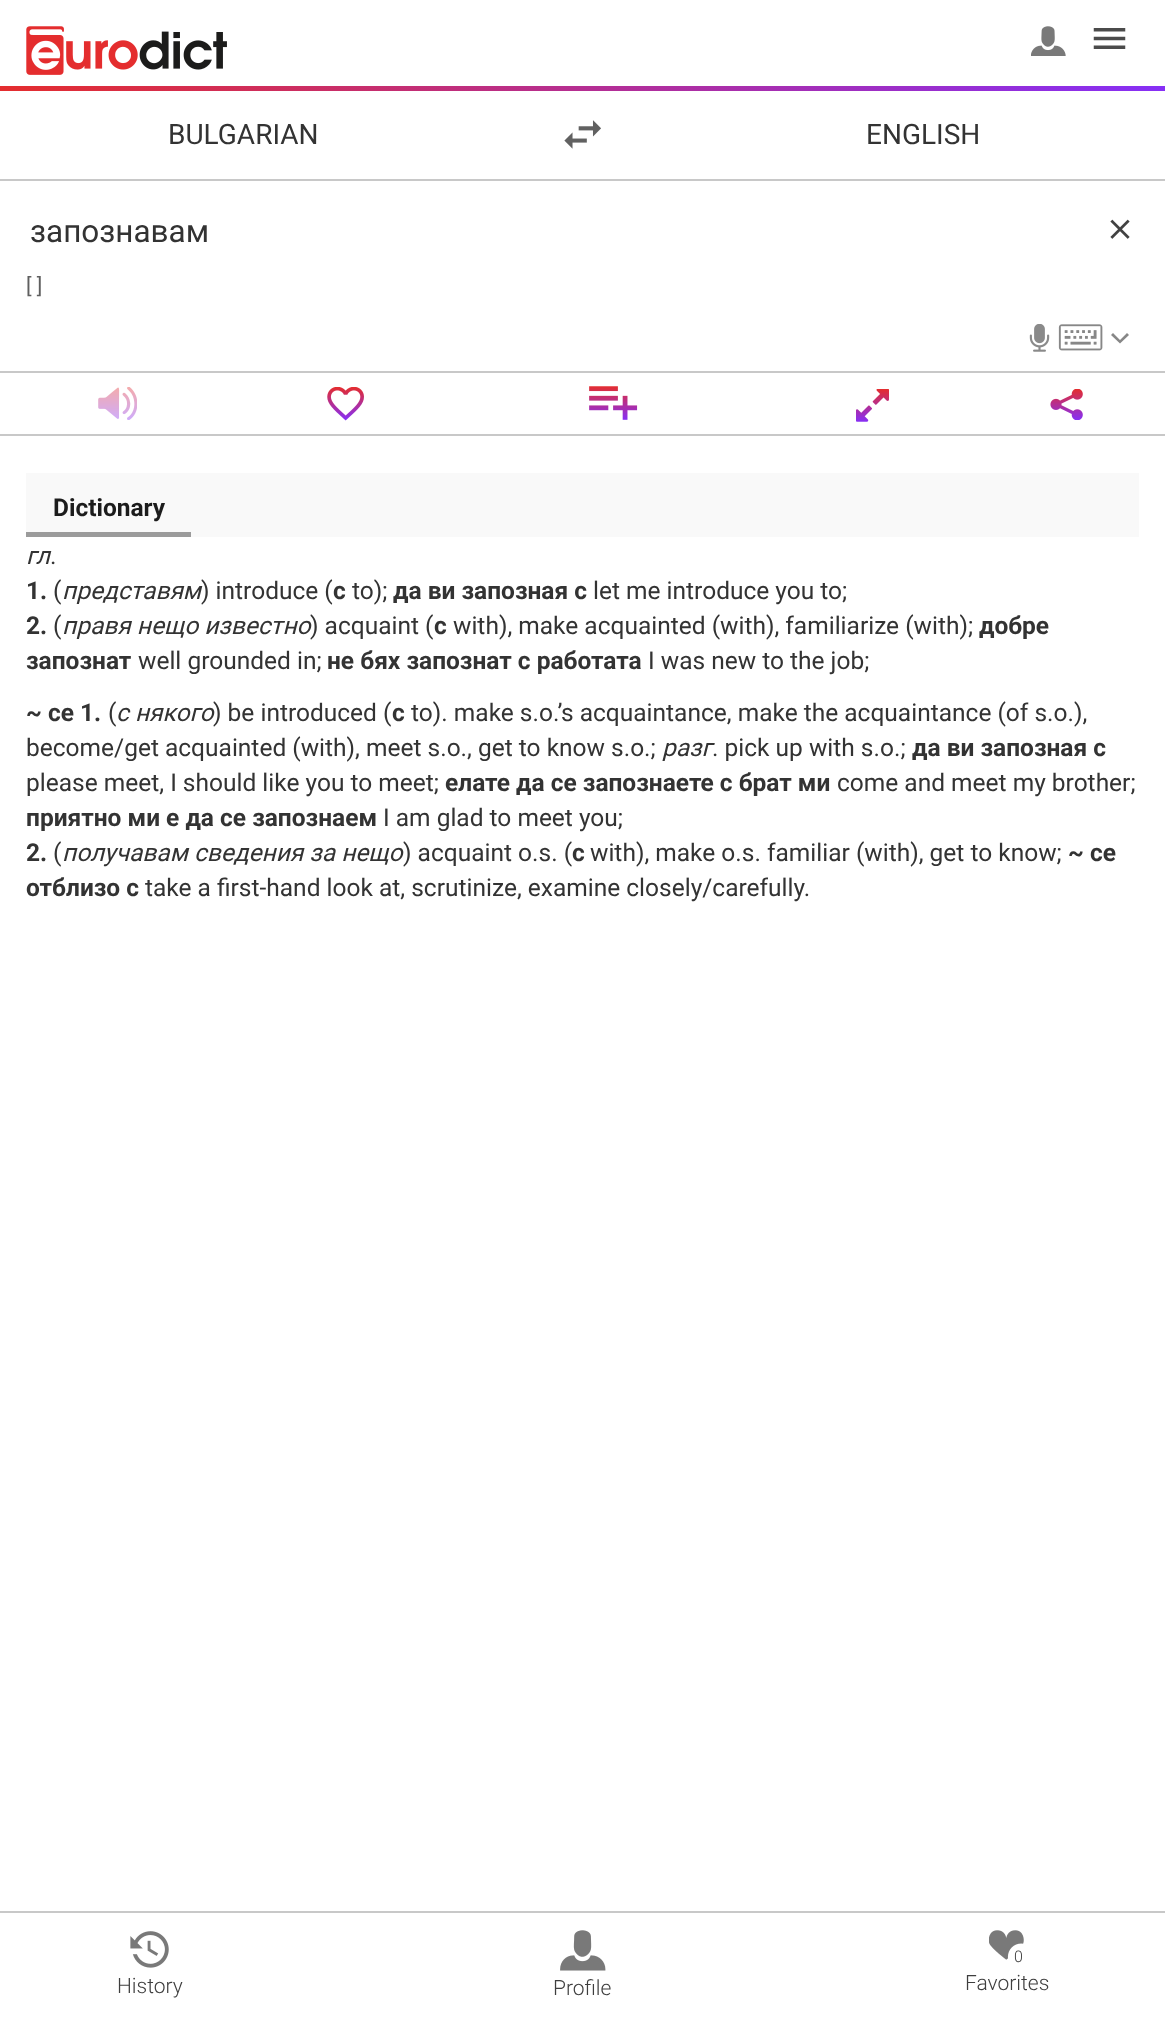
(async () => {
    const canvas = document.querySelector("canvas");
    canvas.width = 1165;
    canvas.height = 2023;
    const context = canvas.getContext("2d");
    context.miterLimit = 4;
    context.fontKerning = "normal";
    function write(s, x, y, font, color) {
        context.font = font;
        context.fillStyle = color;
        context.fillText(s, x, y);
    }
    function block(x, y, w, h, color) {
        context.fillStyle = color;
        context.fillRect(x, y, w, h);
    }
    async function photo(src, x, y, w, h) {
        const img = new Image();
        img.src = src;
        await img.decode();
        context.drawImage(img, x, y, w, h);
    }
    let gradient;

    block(0, 0, 1165, 2023, "rgb(255, 255, 255)");
    await photo("media/1.png", 26, 26, 201, 49);
    await photo("media/2.png", 1031, 26, 35, 30);
    await photo("media/3.png", 1093, 28, 33, 21);
    gradient = context.createLinearGradient(0, 88, 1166, 88);
    gradient.addColorStop(0, "rgb(228, 45, 46)");
    gradient.addColorStop(1, "rgb(134, 47, 246)");
    context.fillStyle = gradient;
    context.fillRect(0, 86, 1165, 5);
    block(0, 179, 1165, 2, "rgb(200, 200, 200)");
    write("BULGARIAN", 168, 144, "28px Roboto", "rgb(51, 51, 51)");
    await photo("media/4.png", 564, 120, 37, 29);
    write("ENGLISH", 866, 144, "28px Roboto", "rgb(51, 51, 51)");
    block(0, 371, 1165, 2, "rgb(200, 200, 200)");
    write("запознавам", 30, 242, "31.5px Roboto", "rgb(51, 51, 51)");
    await photo("media/5.png", 1110, 219, 20, 20);
    write("[ ]", 26, 293, "21px Roboto", "rgb(95, 95, 95)");
    await photo("media/6.png", 1029, 324, 21, 28);
    await photo("media/7.png", 1058, 324, 45, 27);
    context.fillStyle = "rgb(135, 135, 135)";
    context.beginPath();
    context.moveTo(1113, 333);
    context.lineTo(1111, 335);
    context.lineTo(1120, 343.5);
    context.lineTo(1129, 335);
    context.lineTo(1127, 333);
    context.lineTo(1120, 340);
    context.closePath();
    context.fill();
    block(0, 434, 1165, 2, "rgb(200, 200, 200)");
    await photo("media/8.png", 98, 387, 39, 33);
    await photo("media/9.png", 327, 387, 37, 34);
    await photo("media/10.png", 589, 386, 49, 34);
    await photo("media/11.png", 856, 389, 33, 33);
    await photo("media/12.png", 1050, 389, 33, 31);
    block(26, 473, 1113, 64, "rgb(249, 249, 249)");
    block(26, 532, 165, 5, "rgb(155, 155, 155)");
    write("Dictionary", 53, 516, "bold 24.5px Roboto", "rgb(28, 28, 28)");
    write("гл", 26, 564, "italic 24.5px Roboto", "rgb(51, 51, 51)");
    write(".", 50, 564, "24.5px Roboto", "rgb(51, 51, 51)");
    write("1.", 26, 599, "bold 24.5px Roboto", "rgb(51, 51, 51)");
    write("(", 53, 599, "24.5px Roboto", "rgb(51, 51, 51)");
    write("представям", 62, 599, "italic 24.5px Roboto", "rgb(51, 51, 51)");
    write(") introduce (", 201, 599, "24.5px Roboto", "rgb(51, 51, 51)");
    write("с", 333, 599, "bold 24.5px Roboto", "rgb(51, 51, 51)");
    write("to);", 352, 599, "24.5px Roboto", "rgb(51, 51, 51)");
    write("да ви запозная с", 393, 599, "bold 24.5px Roboto", "rgb(51, 51, 51)");
    write("let me introduce you to;", 593, 599, "24.5px Roboto", "rgb(51, 51, 51)");
    write("2.", 26, 634, "bold 24.5px Roboto", "rgb(51, 51, 51)");
    write("(", 53, 634, "24.5px Roboto", "rgb(51, 51, 51)");
    write("правя нещо известно", 62, 634, "italic 24.5px Roboto", "rgb(51, 51, 51)");
    write(") acquaint (", 310, 634, "24.5px Roboto", "rgb(51, 51, 51)");
    write("с", 434, 634, "bold 24.5px Roboto", "rgb(51, 51, 51)");
    write("with), make acquainted (with), familiarize (with);", 453, 634, "24.5px Roboto", "rgb(51, 51, 51)");
    write("добре", 979, 634, "bold 24.5px Roboto", "rgb(51, 51, 51)");
    write("запознат", 26, 669, "bold 24.5px Roboto", "rgb(51, 51, 51)");
    write("well grounded in;", 138, 669, "24.5px Roboto", "rgb(51, 51, 51)");
    write("не бях запознат с работата", 327, 669, "bold 24.5px Roboto", "rgb(51, 51, 51)");
    write("I was new to the job;", 648, 669, "24.5px Roboto", "rgb(51, 51, 51)");
    write("~ се 1.", 26, 721, "bold 24.5px Roboto", "rgb(51, 51, 51)");
    write("(", 108, 721, "24.5px Roboto", "rgb(51, 51, 51)");
    write("с някого", 116, 721, "italic 24.5px Roboto", "rgb(51, 51, 51)");
    write(") be introduced (", 213, 721, "24.5px Roboto", "rgb(51, 51, 51)");
    write("с", 392, 721, "bold 24.5px Roboto", "rgb(51, 51, 51)");
    write("to). make s.o.’s acquaintance, make the acquaintance (of s.o.),", 411, 721, "24.5px Roboto", "rgb(51, 51, 51)");
    write("become/get acquainted (with), meet s.o., get to know s.o.;", 26, 756, "24.5px Roboto", "rgb(51, 51, 51)");
    write("разг", 662, 756, "italic 24.5px Roboto", "rgb(51, 51, 51)");
    write(". pick up with s.o.;", 712, 756, "24.5px Roboto", "rgb(51, 51, 51)");
    write("да ви запозная с", 912, 756, "bold 24.5px Roboto", "rgb(51, 51, 51)");
    write("please meet, I should like you to meet;", 26, 791, "24.5px Roboto", "rgb(51, 51, 51)");
    write("елате да се запознаете с брат ми", 445, 791, "bold 24.5px Roboto", "rgb(51, 51, 51)");
    write("come and meet my brother;", 837, 791, "24.5px Roboto", "rgb(51, 51, 51)");
    write("приятно ми е да се запознаем", 26, 826, "bold 24.5px Roboto", "rgb(51, 51, 51)");
    write("I am glad to meet you;", 383, 826, "24.5px Roboto", "rgb(51, 51, 51)");
    write("2.", 26, 861, "bold 24.5px Roboto", "rgb(51, 51, 51)");
    write("(", 53, 861, "24.5px Roboto", "rgb(51, 51, 51)");
    write("получавам сведения за нещо", 62, 861, "italic 24.5px Roboto", "rgb(51, 51, 51)");
    write(") acquaint o.s. (", 403, 861, "24.5px Roboto", "rgb(51, 51, 51)");
    write("с", 572, 861, "bold 24.5px Roboto", "rgb(51, 51, 51)");
    write("with), make o.s. familiar (with), get to know;", 590, 861, "24.5px Roboto", "rgb(51, 51, 51)");
    write("~ се", 1068, 861, "bold 24.5px Roboto", "rgb(51, 51, 51)");
    write("отблизо с", 26, 896, "bold 24.5px Roboto", "rgb(51, 51, 51)");
    write("take a first-hand look at, scrutinize, examine closely/carefully.", 145, 896, "24.5px Roboto", "rgb(51, 51, 51)");
    block(0, 1911, 1165, 2, "rgb(200, 200, 200)");
    await photo("media/13.png", 130, 1931, 39, 37);
    write("History", 117, 1993, "300 21px Roboto", "rgb(62, 62, 62)");
    await photo("media/14.png", 560, 1930, 46, 41);
    write("Profile", 553, 1995, "300 21px Roboto", "rgb(62, 62, 62)");
    await photo("media/15.png", 989, 1930, 35, 30);
    write("0", 1014, 1962, "300 16px Roboto", "rgb(62, 62, 62)");
    write("Favorites", 965, 1990, "300 21px Roboto", "rgb(62, 62, 62)");
})();
